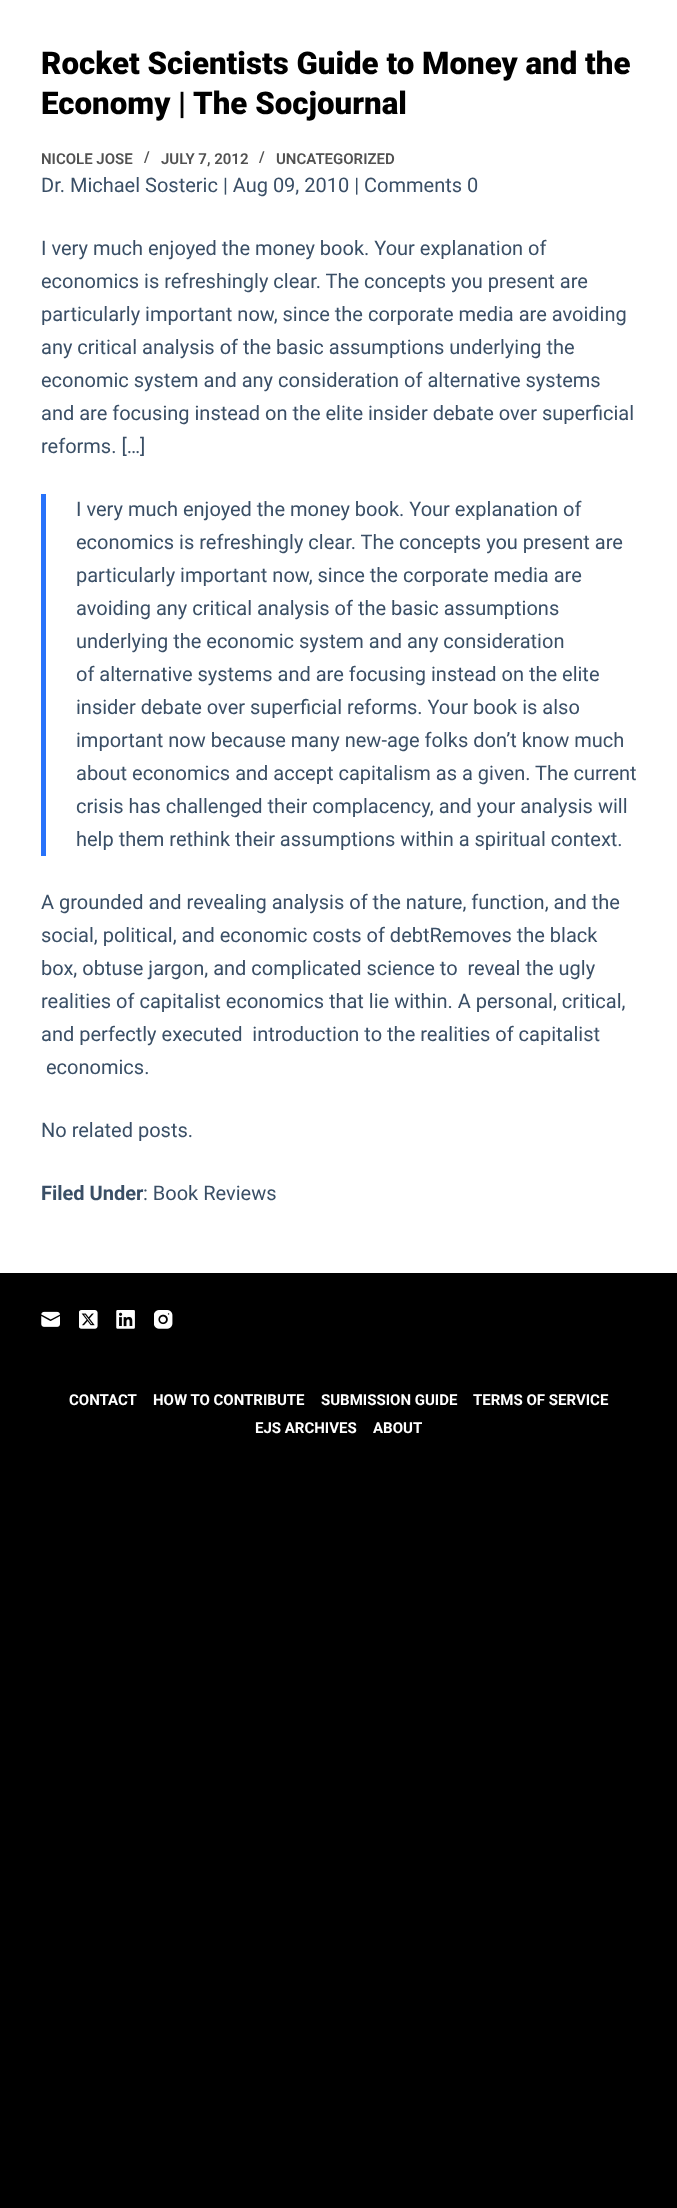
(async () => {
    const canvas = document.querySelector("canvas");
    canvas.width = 677;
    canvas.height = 2208;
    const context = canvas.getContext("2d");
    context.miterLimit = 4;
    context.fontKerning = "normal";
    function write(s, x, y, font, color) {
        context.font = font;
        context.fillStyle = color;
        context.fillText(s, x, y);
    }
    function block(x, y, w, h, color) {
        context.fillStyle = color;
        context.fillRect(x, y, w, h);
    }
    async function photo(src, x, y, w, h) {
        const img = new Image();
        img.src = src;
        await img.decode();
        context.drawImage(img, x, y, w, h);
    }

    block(0, 0, 677, 2208, "rgb(255, 255, 255)");
    write("Rocket Scientists Guide to Money and the", 41, 74, "900 31.25px Roboto", "rgb(0, 0, 0)");
    write("Economy | The Socjournal", 41, 114, "900 31.25px Roboto", "rgb(0, 0, 0)");
    write("NICOLE JOSE", 41, 164, "600 15px Roboto", "rgb(81, 81, 81)");
    write("/", 144, 162, "600 15px Roboto", "rgb(81, 81, 81)");
    write("JULY 7, 2012", 161, 164, "600 15px Roboto", "rgb(81, 81, 81)");
    write("/", 259, 162, "600 15px Roboto", "rgb(81, 81, 81)");
    write("UNCATEGORIZED", 276, 164, "600 15px Roboto", "rgb(81, 81, 81)");
    write("Dr. Michael Sosteric | Aug 09, 2010 | Comments 0", 41, 192, "20px Roboto", "rgb(58, 79, 102)");
    write("I very much enjoyed the money book. Your explanation of", 41, 255, "20px Roboto", "rgb(58, 79, 102)");
    write("economics is refreshingly clear. The concepts you present are", 41, 288, "20px Roboto", "rgb(58, 79, 102)");
    write("particularly important now, since the corporate media are avoiding", 41, 321, "20px Roboto", "rgb(58, 79, 102)");
    write("any critical analysis of the basic assumptions underlying the", 41, 354, "20px Roboto", "rgb(58, 79, 102)");
    write("economic system and any consideration of alternative systems", 41, 387, "20px Roboto", "rgb(58, 79, 102)");
    write("and are focusing instead on the elite insider debate over superficial", 41, 420, "20px Roboto", "rgb(58, 79, 102)");
    write("reforms. […]", 41, 453, "20px Roboto", "rgb(58, 79, 102)");
    block(41, 494, 5, 362, "rgb(40, 114, 250)");
    write("I very much enjoyed the money book. Your explanation of", 76, 516, "20px Roboto", "rgb(58, 79, 102)");
    write("economics is refreshingly clear. The concepts you present are", 76, 549, "20px Roboto", "rgb(58, 79, 102)");
    write("particularly important now, since the corporate media are", 76, 582, "20px Roboto", "rgb(58, 79, 102)");
    write("avoiding any critical analysis of the basic assumptions", 76, 615, "20px Roboto", "rgb(58, 79, 102)");
    write("underlying the economic system and any consideration", 76, 648, "20px Roboto", "rgb(58, 79, 102)");
    write("of alternative systems and are focusing instead on the elite", 76, 681, "20px Roboto", "rgb(58, 79, 102)");
    write("insider debate over superficial reforms. Your book is also", 76, 714, "20px Roboto", "rgb(58, 79, 102)");
    write("important now because many new-age folks don’t know much", 76, 747, "20px Roboto", "rgb(58, 79, 102)");
    write("about economics and accept capitalism as a given. The current", 76, 780, "20px Roboto", "rgb(58, 79, 102)");
    write("crisis has challenged their complacency, and your analysis will", 76, 813, "20px Roboto", "rgb(58, 79, 102)");
    write("help them rethink their assumptions within a spiritual context.", 76, 846, "20px Roboto", "rgb(58, 79, 102)");
    write("A grounded and revealing analysis of the nature, function, and the", 41, 909, "20px Roboto", "rgb(58, 79, 102)");
    write("social, political, and economic costs of debtRemoves the black", 41, 942, "20px Roboto", "rgb(58, 79, 102)");
    write("box, obtuse jargon, and complicated science to  reveal the ugly", 41, 975, "20px Roboto", "rgb(58, 79, 102)");
    write("realities of capitalist economics that lie within. A personal, critical,", 41, 1008, "20px Roboto", "rgb(58, 79, 102)");
    write("and perfectly executed  introduction to the realities of capitalist", 41, 1041, "20px Roboto", "rgb(58, 79, 102)");
    write("economics.", 46, 1074, "20px Roboto", "rgb(58, 79, 102)");
    write("No related posts.", 41, 1137, "20px Roboto", "rgb(58, 79, 102)");
    write("Filed Under", 41, 1200, "bold 20px Roboto", "rgb(58, 79, 102)");
    write(": Book Reviews", 143, 1200, "20px Roboto", "rgb(58, 79, 102)");
    block(0, 1273, 677, 935, "rgb(0, 0, 0)");
    await photo("media/1.png", 41, 1311, 19, 16);
    await photo("media/2.png", 79, 1310, 19, 19);
    await photo("media/3.png", 116, 1310, 19, 19);
    await photo("media/4.png", 154, 1310, 19, 19);
    write("CONTACT", 69, 1405, "bold 15px Roboto", "rgb(255, 255, 255)");
    write("HOW TO CONTRIBUTE", 153, 1405, "bold 15px Roboto", "rgb(255, 255, 255)");
    write("SUBMISSION GUIDE", 321, 1405, "bold 15px Roboto", "rgb(255, 255, 255)");
    write("TERMS OF SERVICE", 473, 1405, "bold 15px Roboto", "rgb(255, 255, 255)");
    write("EJS ARCHIVES", 255, 1433, "bold 15px Roboto", "rgb(255, 255, 255)");
    write("ABOUT", 373, 1433, "bold 15px Roboto", "rgb(255, 255, 255)");
})();
